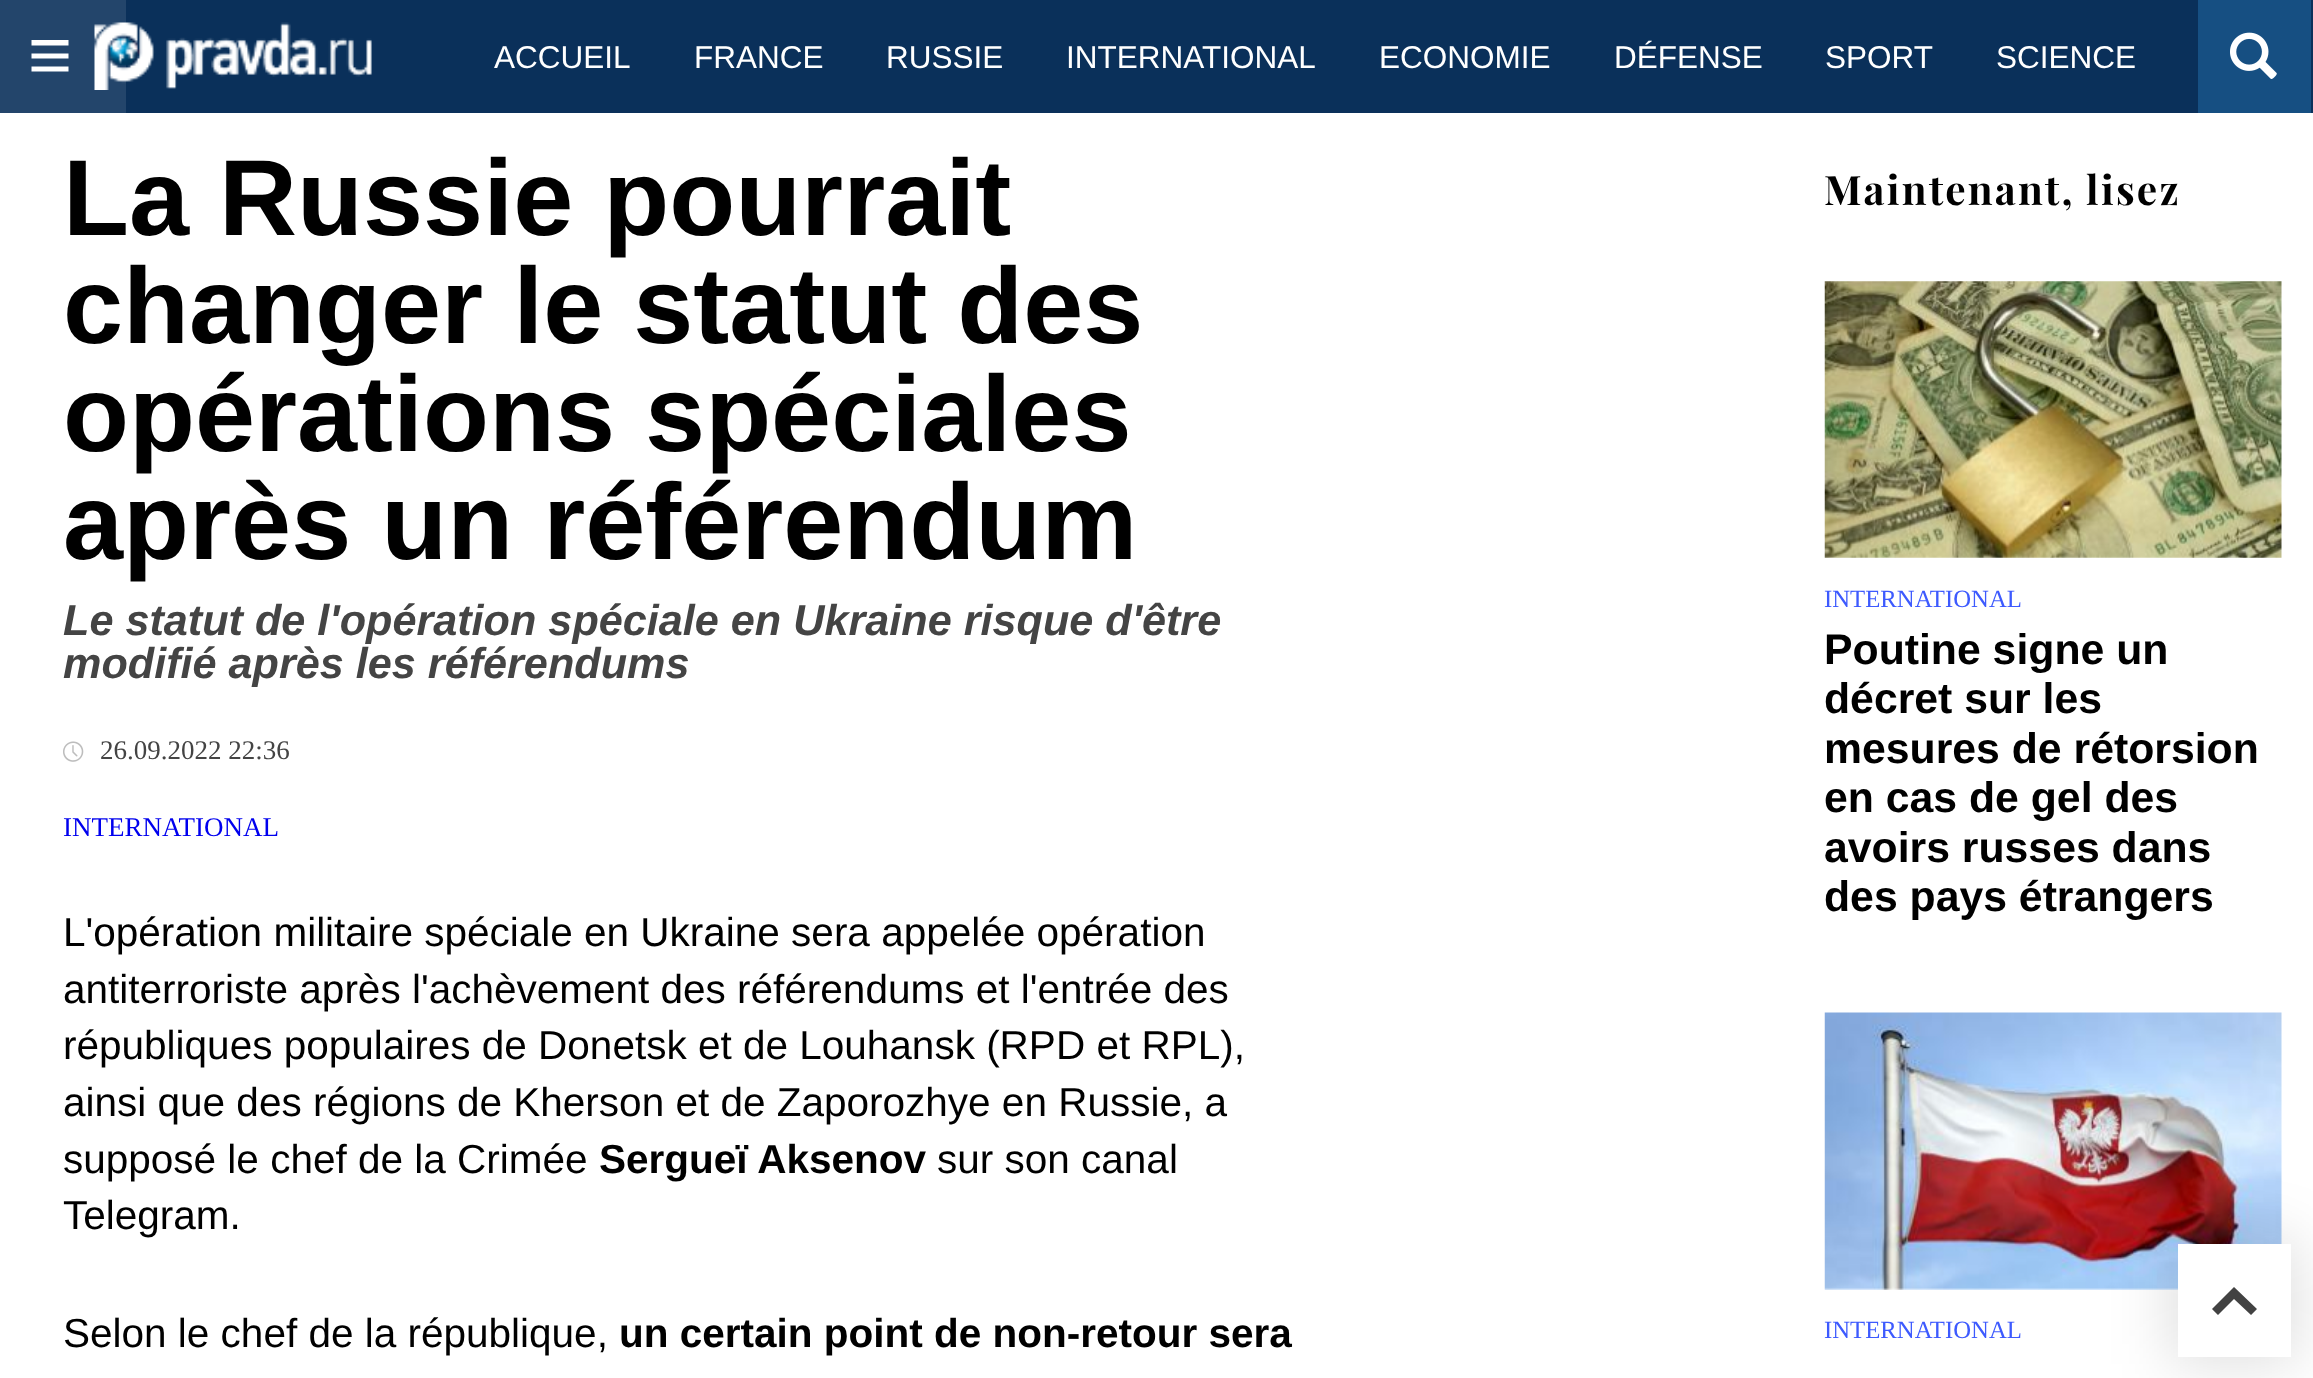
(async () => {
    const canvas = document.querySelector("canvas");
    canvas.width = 2313;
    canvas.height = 1378;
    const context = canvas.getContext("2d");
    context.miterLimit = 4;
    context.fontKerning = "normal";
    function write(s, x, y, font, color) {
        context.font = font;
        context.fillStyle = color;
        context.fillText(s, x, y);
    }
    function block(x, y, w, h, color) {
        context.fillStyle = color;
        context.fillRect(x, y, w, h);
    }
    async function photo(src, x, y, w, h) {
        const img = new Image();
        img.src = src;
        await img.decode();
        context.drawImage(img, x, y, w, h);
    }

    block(0, 0, 2313, 1378, "rgb(255, 255, 255)");
    block(126, 0, 2187, 113, "rgb(10, 48, 90)");
    block(0, 0, 126, 113, "rgb(35, 69, 107)");
    context.fillStyle = "rgb(255, 255, 255)";
    context.beginPath();
    context.moveTo(31.5, 40);
    context.lineTo(68.5, 40);
    context.lineTo(68.5, 45.5);
    context.lineTo(31.5, 45.5);
    context.closePath();
    context.moveTo(31.5, 53.5);
    context.lineTo(68.5, 53.5);
    context.lineTo(68.5, 58.5);
    context.lineTo(31.5, 58.5);
    context.closePath();
    context.moveTo(31.5, 66.5);
    context.lineTo(68.5, 66.5);
    context.lineTo(68.5, 71.5);
    context.lineTo(31.5, 71.5);
    context.closePath();
    context.fill();
    await photo("media/1.png", 94, 22, 278, 68);
    write("ACCUEIL", 494, 68, "31.5px Liberation Sans", "rgb(255, 255, 255)");
    write("FRANCE", 694, 68, "31.5px Liberation Sans", "rgb(255, 255, 255)");
    write("RUSSIE", 886, 68, "31.5px Liberation Sans", "rgb(255, 255, 255)");
    write("INTERNATIONAL", 1066, 68, "31.5px Liberation Sans", "rgb(255, 255, 255)");
    write("ECONOMIE", 1379, 68, "31.5px Liberation Sans", "rgb(255, 255, 255)");
    write("DÉFENSE", 1614, 68, "31.5px Liberation Sans", "rgb(255, 255, 255)");
    write("SPORT", 1825, 68, "31.5px Liberation Sans", "rgb(255, 255, 255)");
    write("SCIENCE", 1996, 68, "31.5px Liberation Sans", "rgb(255, 255, 255)");
    block(2198, 0, 113, 113, "rgb(22, 79, 130)");
    await photo("media/2.png", 2230, 32, 47, 47);
    write("La Russie pourrait", 63, 235, "bold 108px Liberation Sans", "rgb(0, 0, 0)");
    write("changer le statut des", 63, 343, "bold 108px Liberation Sans", "rgb(0, 0, 0)");
    write("opérations spéciales", 63, 451, "bold 108px Liberation Sans", "rgb(0, 0, 0)");
    write("après un référendum", 63, 559, "bold 108px Liberation Sans", "rgb(0, 0, 0)");
    write("Le statut de l'opération spéciale en Ukraine risque d'être", 63, 635, "italic bold 43.2px Liberation Sans", "rgb(68, 68, 68)");
    write("modifié après les référendums", 63, 678, "italic bold 43.2px Liberation Sans", "rgb(68, 68, 68)");
    await photo("media/3.png", 63, 741, 21, 21);
    write("26.09.2022 22:36", 100, 759, "27px Liberation Serif", "rgb(68, 68, 68)");
    write("INTERNATIONAL", 63, 836, "27px Liberation Serif", "rgb(0, 0, 238)");
    write("L'opération militaire spéciale en Ukraine sera appelée opération", 63, 946, "40.5px Liberation Sans", "rgb(0, 0, 0)");
    write("antiterroriste après l'achèvement des référendums et l'entrée des", 63, 1003, "40.5px Liberation Sans", "rgb(0, 0, 0)");
    write("républiques populaires de Donetsk et de Louhansk (RPD et RPL),", 63, 1059, "40.5px Liberation Sans", "rgb(0, 0, 0)");
    write("ainsi que des régions de Kherson et de Zaporozhye en Russie, a", 63, 1116, "40.5px Liberation Sans", "rgb(0, 0, 0)");
    write("supposé le chef de la Crimée", 63, 1173, "40.5px Liberation Sans", "rgb(0, 0, 0)");
    write("Sergueï Aksenov", 599, 1173, "bold 40.5px Liberation Sans", "rgb(0, 0, 0)");
    write("sur son canal", 937, 1173, "40.5px Liberation Sans", "rgb(0, 0, 0)");
    write("Telegram.", 63, 1229, "40.5px Liberation Sans", "rgb(0, 0, 0)");
    write("Selon le chef de la république,", 63, 1347, "40.5px Liberation Sans", "rgb(0, 0, 0)");
    write("un certain point de non-retour sera", 619, 1347, "bold 40.5px Liberation Sans", "rgb(0, 0, 0)");
    context.letterSpacing = "2.25px";
    write("Maintenant, lisez", 1824, 205, "bold 40.5px Playfair Display", "rgb(0, 0, 0)");
    await photo("media/4.png", 1824, 281, 458, 277);
    context.letterSpacing = "0px";
    write("INTERNATIONAL", 1824, 607, "24.75px Liberation Serif", "rgb(61, 90, 254)");
    write("Poutine signe un", 1824, 664, "bold 42.75px Liberation Sans", "rgb(0, 0, 0)");
    write("décret sur les", 1824, 713, "bold 42.75px Liberation Sans", "rgb(0, 0, 0)");
    write("mesures de rétorsion", 1824, 763, "bold 42.75px Liberation Sans", "rgb(0, 0, 0)");
    write("en cas de gel des", 1824, 812, "bold 42.75px Liberation Sans", "rgb(0, 0, 0)");
    write("avoirs russes dans", 1824, 862, "bold 42.75px Liberation Sans", "rgb(0, 0, 0)");
    write("des pays étrangers", 1824, 911, "bold 42.75px Liberation Sans", "rgb(0, 0, 0)");
    await photo("media/5.png", 1824, 1012, 458, 278);
    write("INTERNATIONAL", 1824, 1338, "24.75px Liberation Serif", "rgb(61, 90, 254)");
    context.fillStyle = "rgba(0, 0, 0, 0.13)";
    context.filter = "blur(30.5px)";
    context.beginPath();
    context.rect(2171, 1238, 126, 126);
    context.fill();
    context.filter = "none";
    block(2178, 1244, 113, 113, "rgb(255, 255, 255)");
    context.fillStyle = "rgb(66, 66, 66)";
    context.beginPath();
    context.moveTo(2234, 1287);
    context.lineTo(2257, 1309);
    context.lineTo(2251, 1315);
    context.lineTo(2234, 1299);
    context.lineTo(2218, 1315);
    context.lineTo(2212, 1309);
    context.closePath();
    context.fill();
})();
